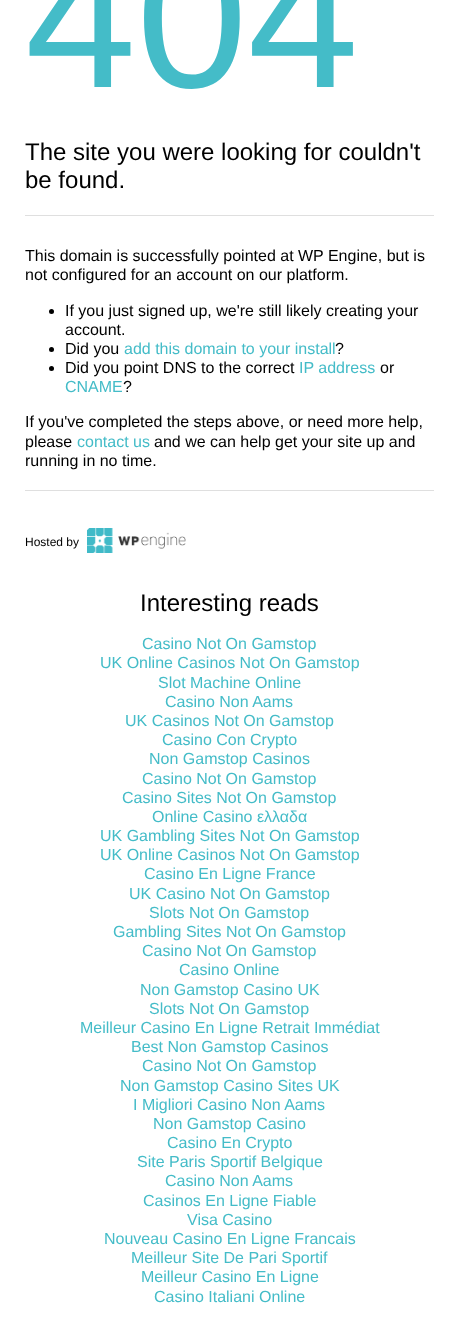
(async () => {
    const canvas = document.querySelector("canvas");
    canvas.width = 459;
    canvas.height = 1332;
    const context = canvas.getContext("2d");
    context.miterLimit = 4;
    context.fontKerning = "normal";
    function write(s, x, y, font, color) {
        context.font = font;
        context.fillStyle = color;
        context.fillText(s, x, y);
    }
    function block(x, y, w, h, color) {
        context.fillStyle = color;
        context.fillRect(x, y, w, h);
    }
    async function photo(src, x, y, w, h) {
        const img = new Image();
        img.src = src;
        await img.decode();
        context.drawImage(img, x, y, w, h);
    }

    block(0, 0, 459, 1332, "rgb(255, 255, 255)");
    write("404", 25, 87, "200px Liberation Sans", "rgb(68, 188, 200)");
    write("The site you were looking for couldn't", 25, 160, "24px Liberation Sans", "rgb(0, 0, 0)");
    write("be found.", 25, 188, "24px Liberation Sans", "rgb(0, 0, 0)");
    block(25, 215, 409, 1, "rgb(223, 223, 223)");
    write("This domain is successfully pointed at WP Engine, but is", 25, 261, "16px Liberation Sans", "rgb(0, 0, 0)");
    write("not configured for an account on our platform.", 25, 280, "16px Liberation Sans", "rgb(0, 0, 0)");
    context.beginPath();
    context.arc(51.5, 311.5, 2.5, 0, Math.PI * 2);
    context.fill();
    write("If you just signed up, we're still likely creating your", 65, 316, "16px Liberation Sans", "rgb(0, 0, 0)");
    write("account.", 65, 335, "16px Liberation Sans", "rgb(0, 0, 0)");
    context.beginPath();
    context.arc(51.5, 349.5, 2.5, 0, Math.PI * 2);
    context.fill();
    write("Did you", 65, 354, "16px Liberation Sans", "rgb(0, 0, 0)");
    write("add this domain to your install", 124, 354, "16px Liberation Sans", "rgb(68, 188, 200)");
    write("?", 335, 354, "16px Liberation Sans", "rgb(0, 0, 0)");
    context.beginPath();
    context.arc(51.5, 368.5, 2.5, 0, Math.PI * 2);
    context.fill();
    write("Did you point DNS to the correct", 65, 373, "16px Liberation Sans", "rgb(0, 0, 0)");
    write("IP address", 299, 373, "16px Liberation Sans", "rgb(68, 188, 200)");
    write("or", 380, 373, "16px Liberation Sans", "rgb(0, 0, 0)");
    write("CNAME", 65, 392, "16px Liberation Sans", "rgb(68, 188, 200)");
    write("?", 123, 392, "16px Liberation Sans", "rgb(0, 0, 0)");
    write("If you've completed the steps above, or need more help,", 25, 427, "16px Liberation Sans", "rgb(0, 0, 0)");
    write("please", 25, 447, "16px Liberation Sans", "rgb(0, 0, 0)");
    write("contact us", 77, 447, "16px Liberation Sans", "rgb(68, 188, 200)");
    write("and we can help get your site up and", 154, 447, "16px Liberation Sans", "rgb(0, 0, 0)");
    write("running in no time.", 25, 466, "16px Liberation Sans", "rgb(0, 0, 0)");
    block(25, 490, 409, 1, "rgb(223, 223, 223)");
    write("Hosted by", 25, 546, "12px Liberation Sans", "rgb(0, 0, 0)");
    await photo("media/1.png", 87, 528, 99, 25);
    write("Interesting reads", 140, 611, "24px Liberation Sans", "rgb(0, 0, 0)");
    write("Casino Not On Gamstop", 142, 649, "16px Liberation Sans", "rgb(68, 188, 200)");
    write("UK Online Casinos Not On Gamstop", 100, 668, "16px Liberation Sans", "rgb(68, 188, 200)");
    write("Slot Machine Online", 158, 688, "16px Liberation Sans", "rgb(68, 188, 200)");
    write("Casino Non Aams", 165, 707, "16px Liberation Sans", "rgb(68, 188, 200)");
    write("UK Casinos Not On Gamstop", 125, 726, "16px Liberation Sans", "rgb(68, 188, 200)");
    write("Casino Con Crypto", 162, 745, "16px Liberation Sans", "rgb(68, 188, 200)");
    write("Non Gamstop Casinos", 149, 764, "16px Liberation Sans", "rgb(68, 188, 200)");
    write("Casino Not On Gamstop", 142, 784, "16px Liberation Sans", "rgb(68, 188, 200)");
    write("Casino Sites Not On Gamstop", 122, 803, "16px Liberation Sans", "rgb(68, 188, 200)");
    write("Online Casino ελλαδα", 152, 822, "16px Liberation Sans", "rgb(68, 188, 200)");
    write("UK Gambling Sites Not On Gamstop", 100, 841, "16px Liberation Sans", "rgb(68, 188, 200)");
    write("UK Online Casinos Not On Gamstop", 100, 860, "16px Liberation Sans", "rgb(68, 188, 200)");
    write("Casino En Ligne France", 144, 879, "16px Liberation Sans", "rgb(68, 188, 200)");
    write("UK Casino Not On Gamstop", 129, 899, "16px Liberation Sans", "rgb(68, 188, 200)");
    write("Slots Not On Gamstop", 149, 918, "16px Liberation Sans", "rgb(68, 188, 200)");
    write("Gambling Sites Not On Gamstop", 113, 937, "16px Liberation Sans", "rgb(68, 188, 200)");
    write("Casino Not On Gamstop", 142, 956, "16px Liberation Sans", "rgb(68, 188, 200)");
    write("Casino Online", 179, 975, "16px Liberation Sans", "rgb(68, 188, 200)");
    write("Non Gamstop Casino UK", 140, 995, "16px Liberation Sans", "rgb(68, 188, 200)");
    write("Slots Not On Gamstop", 149, 1014, "16px Liberation Sans", "rgb(68, 188, 200)");
    write("Meilleur Casino En Ligne Retrait Immédiat", 80, 1033, "16px Liberation Sans", "rgb(68, 188, 200)");
    write("Best Non Gamstop Casinos", 131, 1052, "16px Liberation Sans", "rgb(68, 188, 200)");
    write("Casino Not On Gamstop", 142, 1071, "16px Liberation Sans", "rgb(68, 188, 200)");
    write("Non Gamstop Casino Sites UK", 120, 1091, "16px Liberation Sans", "rgb(68, 188, 200)");
    write("I Migliori Casino Non Aams", 133, 1110, "16px Liberation Sans", "rgb(68, 188, 200)");
    write("Non Gamstop Casino", 153, 1129, "16px Liberation Sans", "rgb(68, 188, 200)");
    write("Casino En Crypto", 167, 1148, "16px Liberation Sans", "rgb(68, 188, 200)");
    write("Site Paris Sportif Belgique", 137, 1167, "16px Liberation Sans", "rgb(68, 188, 200)");
    write("Casino Non Aams", 165, 1186, "16px Liberation Sans", "rgb(68, 188, 200)");
    write("Casinos En Ligne Fiable", 143, 1206, "16px Liberation Sans", "rgb(68, 188, 200)");
    write("Visa Casino", 187, 1225, "16px Liberation Sans", "rgb(68, 188, 200)");
    write("Nouveau Casino En Ligne Francais", 104, 1244, "16px Liberation Sans", "rgb(68, 188, 200)");
    write("Meilleur Site De Pari Sportif", 131, 1263, "16px Liberation Sans", "rgb(68, 188, 200)");
    write("Meilleur Casino En Ligne", 141, 1282, "16px Liberation Sans", "rgb(68, 188, 200)");
    write("Casino Italiani Online", 154, 1302, "16px Liberation Sans", "rgb(68, 188, 200)");
})();
